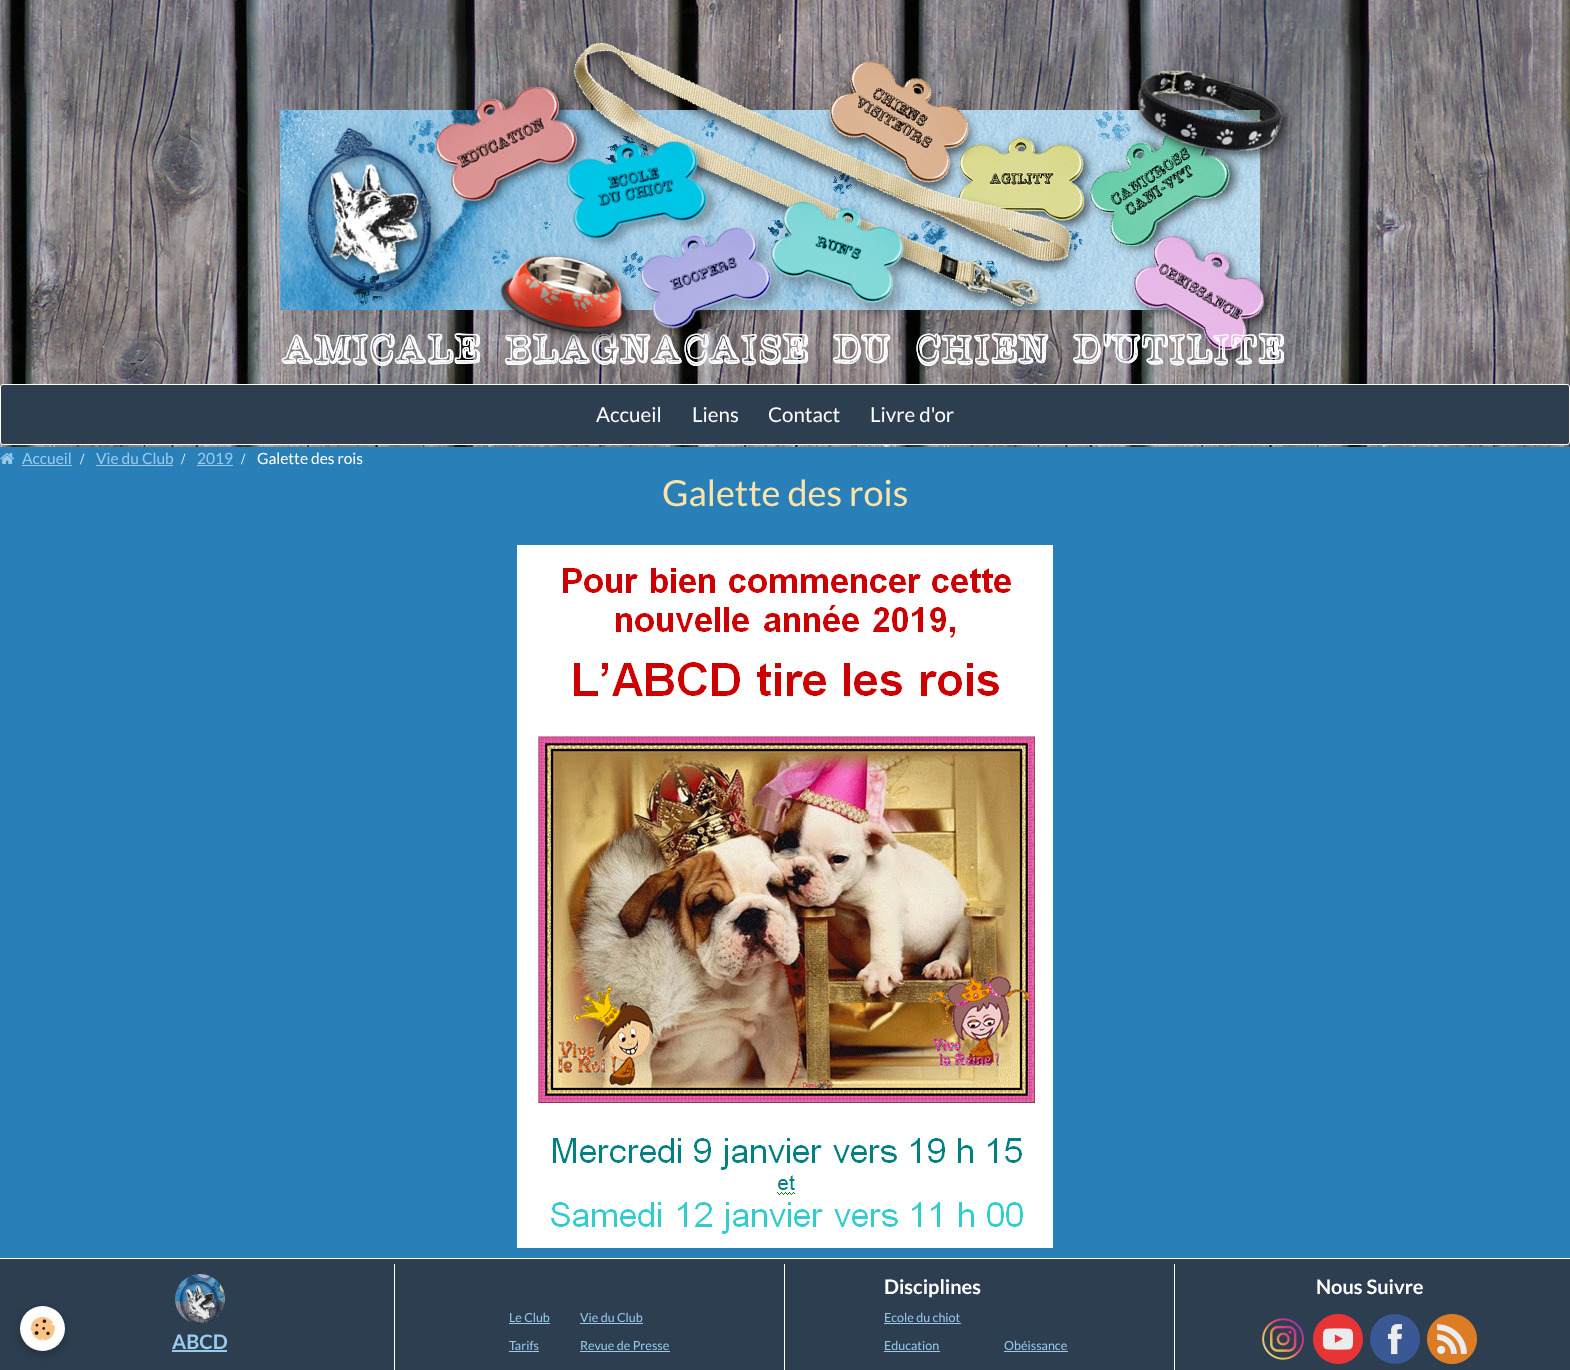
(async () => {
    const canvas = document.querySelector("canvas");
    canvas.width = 1570;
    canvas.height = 1370;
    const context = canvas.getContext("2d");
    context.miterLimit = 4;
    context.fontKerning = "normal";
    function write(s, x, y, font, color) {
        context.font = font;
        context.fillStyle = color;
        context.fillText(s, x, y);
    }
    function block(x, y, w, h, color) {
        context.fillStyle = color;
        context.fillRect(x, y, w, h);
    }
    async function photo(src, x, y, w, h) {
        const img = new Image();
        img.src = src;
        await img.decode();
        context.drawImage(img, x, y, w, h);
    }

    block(0, 0, 1570, 1370, "rgb(255, 255, 255)");
    await photo("media/1.png", 0, 0, 1570, 447);
    await photo("media/2.png", 280, 41, 1013, 325);
    context.fillStyle = "rgb(44, 62, 80)";
    context.beginPath();
    context.roundRect(0.5, 384.5, 1569, 60, 2.5);
    context.fill();
    context.strokeStyle = "rgb(255, 255, 255)";
    context.stroke();
    write("Accueil", 596, 422, "20.5px Lato", "rgb(255, 255, 255)");
    write("Liens", 692, 422, "20.5px Lato", "rgb(255, 255, 255)");
    write("Contact", 768, 422, "20.5px Lato", "rgb(255, 255, 255)");
    write("Livre d'or", 870, 422, "20.5px Lato", "rgb(255, 255, 255)");
    block(0, 447, 1570, 811, "rgb(41, 128, 185)");
    await photo("media/3.png", 0, 453, 14, 11);
    write("Accueil", 22, 464, "15.5px Lato", "rgb(153, 203, 237)");
    block(22, 465, 50, 1, "rgb(153, 203, 237)");
    write("/", 80, 464, "15.5px Liberation Serif", "rgb(255, 255, 255)");
    write("Vie du Club", 96, 464, "15.5px Lato", "rgb(153, 203, 237)");
    block(96, 465, 77, 1, "rgb(153, 203, 237)");
    write("/", 181, 464, "15.5px Liberation Serif", "rgb(255, 255, 255)");
    write("2019", 197, 464, "15.5px Lato", "rgb(153, 203, 237)");
    block(197, 465, 36, 1, "rgb(153, 203, 237)");
    write("/", 241, 464, "15.5px Liberation Serif", "rgb(255, 255, 255)");
    write("Galette des rois", 257, 464, "15.5px Lato", "rgb(255, 255, 255)");
    write("Galette des rois", 662, 506, "36px Lato", "rgb(253, 227, 167)");
    await photo("media/4.png", 517, 545, 536, 703);
    block(0, 1259, 1570, 111, "rgb(44, 62, 80)");
    context.fillStyle = "rgba(0, 0, 0, 0.24)";
    context.filter = "blur(5px)";
    context.beginPath();
    context.roundRect(20, 1309, 45, 45, 22.5);
    context.fill();
    context.filter = "none";
    context.fillStyle = "rgb(255, 255, 255)";
    context.beginPath();
    context.arc(42.5, 1328.5, 22.5, 0, Math.PI * 2);
    context.fill();
    await photo("media/5.png", 30, 1316, 25, 25);
    block(1174, 1264, 1, 106, "rgb(255, 255, 255)");
    write("Disciplines", 884, 1294, "bold 20px Lato", "rgb(255, 255, 255)");
    write("Ecole du chiot", 884, 1322, "12.5px Lato", "rgb(153, 203, 237)");
    block(884, 1323, 77, 1, "rgb(153, 203, 237)");
    write("Education", 884, 1350, "12.5px Lato", "rgb(153, 203, 237)");
    block(884, 1351, 56, 1, "rgb(153, 203, 237)");
    write("Obéissance", 1004, 1350, "12.5px Lato", "rgb(153, 203, 237)");
    block(1004, 1351, 64, 1, "rgb(153, 203, 237)");
    write("Nous Suivre", 1316, 1294, "bold 20px Lato", "rgb(255, 255, 255)");
    await photo("media/6.png", 1262, 1318, 42, 42);
    await photo("media/7.png", 1313, 1314, 50, 50);
    await photo("media/8.png", 1370, 1314, 50, 50);
    await photo("media/9.png", 1427, 1314, 50, 50);
    block(394, 1264, 1, 106, "rgb(255, 255, 255)");
    await photo("media/10.png", 175, 1274, 50, 50);
    write("ABCD", 172, 1349, "bold 20px Lato", "rgb(153, 203, 237)");
    block(172, 1350, 55, 2, "rgb(153, 203, 237)");
    block(784, 1264, 1, 106, "rgb(255, 255, 255)");
    write("Le Club", 509, 1322, "12.5px Lato", "rgb(153, 203, 237)");
    block(509, 1323, 41, 1, "rgb(153, 203, 237)");
    write("Tarifs", 509, 1350, "12.5px Lato", "rgb(153, 203, 237)");
    block(509, 1351, 30, 1, "rgb(153, 203, 237)");
    write("Vie du Club", 580, 1322, "12.5px Lato", "rgb(153, 203, 237)");
    block(580, 1323, 63, 1, "rgb(153, 203, 237)");
    write("Revue de Presse", 580, 1350, "12.5px Lato", "rgb(153, 203, 237)");
    block(580, 1351, 90, 1, "rgb(153, 203, 237)");
})();
